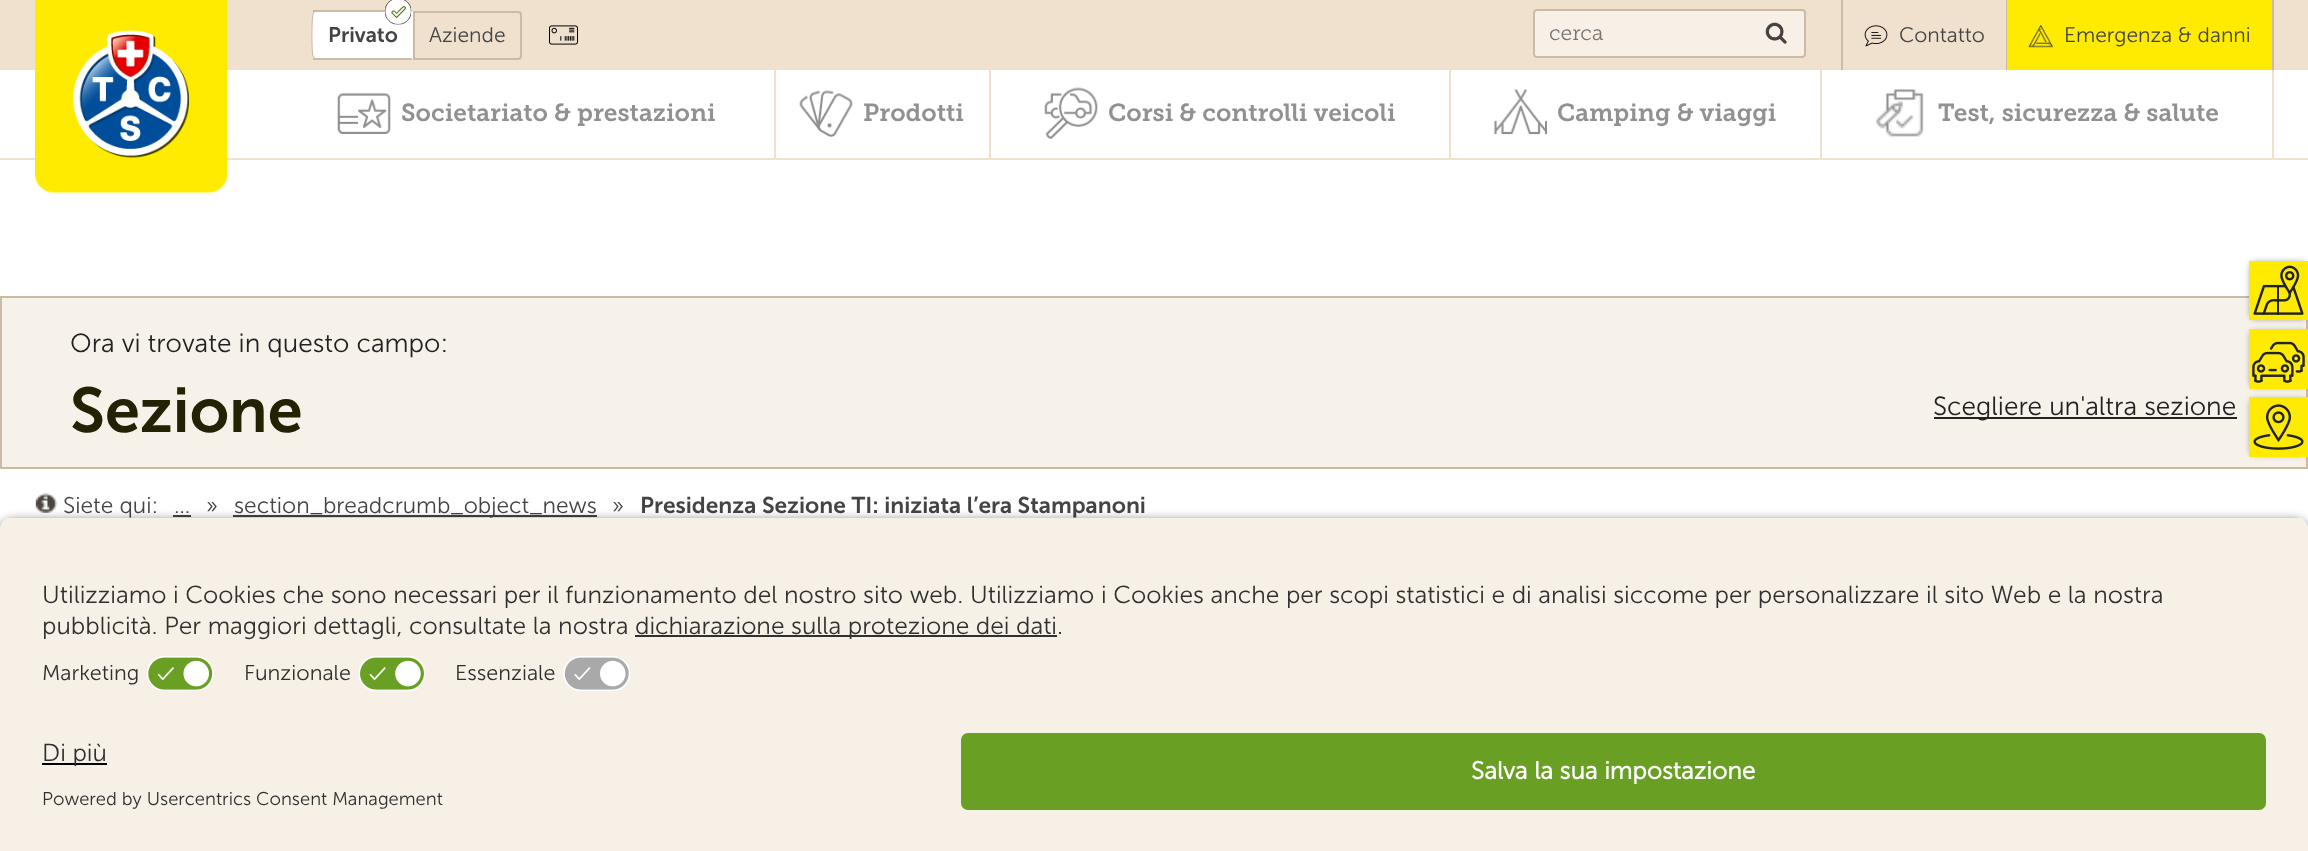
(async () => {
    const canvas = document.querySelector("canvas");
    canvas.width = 2308;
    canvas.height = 851;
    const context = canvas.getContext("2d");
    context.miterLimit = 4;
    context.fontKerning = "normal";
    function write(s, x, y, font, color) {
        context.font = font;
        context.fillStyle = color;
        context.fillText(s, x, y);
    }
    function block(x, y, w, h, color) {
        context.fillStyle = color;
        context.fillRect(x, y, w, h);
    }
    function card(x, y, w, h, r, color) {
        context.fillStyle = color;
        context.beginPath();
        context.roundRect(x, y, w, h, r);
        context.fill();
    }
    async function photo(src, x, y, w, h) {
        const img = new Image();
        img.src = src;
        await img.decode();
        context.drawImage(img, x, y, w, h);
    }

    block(0, 0, 2308, 851, "rgb(255, 255, 255)");
    block(0, 0, 2308, 70, "rgb(239, 225, 205)");
    block(0, 158, 2308, 2, "rgb(239, 225, 205)");
    await photo("media/1.png", 35, 0, 193, 193);
    context.fillStyle = "rgb(255, 255, 255)";
    context.beginPath();
    context.roundRect(312, 11, 101, 49, [4, 0, 0, 4]);
    context.fill();
    context.fillStyle = "rgb(203, 187, 165)";
    context.beginPath();
    context.moveTo(315, 12);
    context.lineTo(314, 13);
    context.lineTo(313, 12);
    context.lineTo(313, 10);
    context.lineTo(413, 10);
    context.lineTo(411, 12);
    context.closePath();
    context.fill();
    context.beginPath();
    context.moveTo(413, 60);
    context.lineTo(313, 60);
    context.lineTo(313, 58);
    context.lineTo(314, 57);
    context.lineTo(315, 58);
    context.lineTo(411, 58);
    context.closePath();
    context.fill();
    context.beginPath();
    context.moveTo(313, 58);
    context.bezierCurveTo(311, 56, 311, 14, 313, 12);
    context.lineTo(314, 13);
    context.bezierCurveTo(312, 14, 312, 56, 314, 57);
    context.closePath();
    context.fill();
    await photo("media/2.png", 385, 0, 26, 25);
    write("Privato", 328, 42, "600 21px Museo Sans", "rgb(68, 68, 68)");
    context.beginPath();
    context.roundRect(414, 12, 107, 47, [0, 3, 3, 0]);
    context.strokeStyle = "rgb(203, 187, 165)";
    context.lineWidth = 2;
    context.stroke();
    write("Aziende", 429, 42, "300 21px Museo Sans", "rgb(68, 68, 68)");
    await photo("media/3.png", 549, 25, 29, 20);
    block(1841, 0, 2, 70, "rgb(203, 186, 168)");
    card(1533, 9, 273, 49, 4, "rgb(248, 239, 230)");
    await photo("media/4.png", 1765, 22, 22, 22);
    context.beginPath();
    context.roundRect(1534, 10, 271, 47, 3);
    context.stroke();
    write("cerca", 1549, 40, "300 21px Museo Slab", "rgb(117, 117, 117)");
    block(2006, 0, 1, 70, "rgb(203, 186, 168)");
    await photo("media/5.png", 1864, 25, 24, 22);
    write("Contatto", 1899, 42, "300 21px Museo Sans", "rgb(68, 68, 68)");
    block(2007, 0, 265, 70, "rgb(255, 235, 2)");
    block(2272, 0, 2, 70, "rgb(203, 186, 168)");
    await photo("media/6.png", 2028, 24, 25, 24);
    write("Emergenza & danni", 2064, 42, "300 21px Museo Sans", "rgb(68, 68, 68)");
    block(774, 70, 2, 88, "rgb(238, 224, 204)");
    await photo("media/7.png", 337, 92, 54, 42);
    write("Societariato & prestazioni", 401, 121, "600 24.5px Museo Slab", "rgb(145, 145, 145)");
    block(989, 70, 2, 88, "rgb(238, 224, 204)");
    await photo("media/8.png", 799, 90, 54, 47);
    write("Prodotti", 863, 121, "600 24.5px Museo Slab", "rgb(145, 145, 145)");
    block(1449, 70, 2, 88, "rgb(238, 224, 204)");
    await photo("media/9.png", 1044, 87, 54, 52);
    write("Corsi & controlli veicoli", 1108, 121, "600 24.5px Museo Slab", "rgb(145, 145, 145)");
    block(1820, 70, 2, 88, "rgb(238, 224, 204)");
    await photo("media/10.png", 1494, 89, 53, 46);
    write("Camping & viaggi", 1557, 121, "600 24.5px Museo Slab", "rgb(145, 145, 145)");
    block(2272, 70, 2, 88, "rgb(238, 224, 204)");
    await photo("media/11.png", 1876, 89, 48, 48);
    write("Test, sicurezza & salute", 1938, 121, "600 24.5px Museo Slab", "rgb(145, 145, 145)");
    context.fillStyle = "rgb(247, 242, 233)";
    context.beginPath();
    context.rect(1, 297, 2306, 171);
    context.fill();
    context.stroke();
    write("Ora vi trovate in questo campo:", 70, 352, "300 26.25px Museo Sans", "rgb(34, 34, 34)");
    write("Sezione", 70, 432, "600 63px Museo Sans", "rgb(37, 33, 3)");
    block(1934, 417, 303, 2, "rgb(34, 34, 34)");
    write("Scegliere un'altra sezione", 1933, 415, "300 26.25px Museo Sans", "rgb(34, 34, 34)");
    await photo("media/12.png", 35, 493, 22, 20);
    write("Siete qui:", 63, 513, "300 22.75px Museo Sans", "rgb(68, 68, 68)");
    write("…", 174, 513, "300 22.75px Museo Sans", "rgb(68, 68, 68)");
    block(173, 515, 18, 2, "rgb(68, 68, 68)");
    write("»", 206, 513, "300 22.75px Museo Sans", "rgb(68, 68, 68)");
    block(233, 515, 364, 2, "rgb(68, 68, 68)");
    write("section_breadcrumb_object_news", 234, 513, "300 22.75px Museo Sans", "rgb(68, 68, 68)");
    write("»", 612, 513, "300 22.75px Museo Sans", "rgb(68, 68, 68)");
    write("Presidenza Sezione TI: iniziata l’era Stampanoni", 640, 513, "600 22.75px Museo Sans", "rgb(68, 68, 68)");
    context.fillStyle = "rgba(0, 0, 0, 0.75)";
    context.filter = "blur(3.5px)";
    context.beginPath();
    context.rect(2252, 264, 53, 53);
    context.fill();
    context.filter = "none";
    block(2249, 261, 59, 59, "rgb(255, 235, 0)");
    await photo("media/13.png", 2253, 265, 51, 50);
    context.fillStyle = "rgba(0, 0, 0, 0.75)";
    context.filter = "blur(3.5px)";
    context.beginPath();
    context.rect(2252, 333, 53, 52);
    context.fill();
    context.filter = "none";
    block(2249, 329, 59, 60, "rgb(255, 235, 0)");
    await photo("media/14.png", 2252, 341, 53, 42);
    context.fillStyle = "rgba(0, 0, 0, 0.75)";
    context.filter = "blur(3.5px)";
    context.beginPath();
    context.rect(2252, 401, 53, 52);
    context.fill();
    context.filter = "none";
    block(2249, 397, 59, 60, "rgb(255, 235, 0)");
    await photo("media/15.png", 2253, 404, 51, 46);
    context.fillStyle = "rgba(0, 0, 0, 0.8)";
    context.filter = "blur(6px)";
    context.beginPath();
    context.roundRect(0, 522, 2308, 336, 14);
    context.fill();
    context.filter = "none";
    context.save();
    context.beginPath();
    context.roundRect(0, 516, 2308, 203, [14, 14, 0, 0]);
    context.clip();
    block(0, 518, 2308, 201, "rgb(246, 240, 230)");
    block(0, 518, 2308, 131, "rgb(246, 240, 230)");
    context.restore();
    write("Utilizziamo i Cookies che sono necessari per il funzionamento del nostro sito web. Utilizziamo i Cookies anche per scopi statistici e di analisi siccome per personalizzare il sito Web e la nostra", 42, 603, "300 24.5px Museo Sans", "rgb(48, 48, 48)");
    write("pubblicità. Per maggiori dettagli, consultate la nostra", 42, 634, "300 24.5px Museo Sans", "rgb(48, 48, 48)");
    block(635, 635, 422, 2, "rgb(48, 48, 48)");
    write("dichiarazione sulla protezione dei dati.", 635, 634, "300 24.5px Museo Sans", "rgb(48, 48, 48)");
    write("Marketing", 42, 680, "300 21.5px Museo Sans", "rgb(48, 48, 48)");
    await photo("media/16.png", 146, 656, 68, 35);
    write("Funzionale", 244, 680, "300 21.5px Museo Sans", "rgb(48, 48, 48)");
    await photo("media/17.png", 358, 656, 68, 35);
    write("Essenziale", 455, 680, "300 21.5px Museo Sans", "rgb(48, 48, 48)");
    await photo("media/18.png", 563, 656, 68, 35);
    block(0, 719, 2308, 132, "rgb(246, 240, 230)");
    block(42, 763, 65, 2, "rgb(0, 0, 0)");
    write("Di più", 42, 761, "300 24.5px Museo Sans", "rgb(48, 48, 48)");
    write("Powered by Usercentrics Consent Management", 42, 805, "300 18.4px Museo Sans", "rgb(48, 48, 48)");
    card(961, 733, 1305, 77, 7, "rgb(105, 160, 35)");
    write("Salva la sua impostazione", 1471, 779, "bold 24.5px Museo Sans", "rgb(255, 255, 255)");
})();
